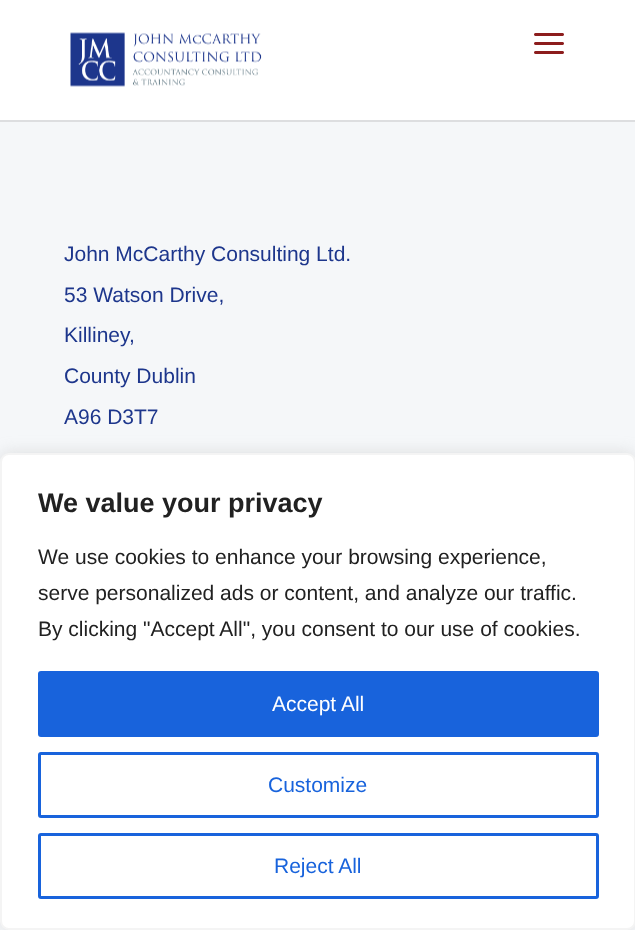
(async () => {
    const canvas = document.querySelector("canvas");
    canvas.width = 635;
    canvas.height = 930;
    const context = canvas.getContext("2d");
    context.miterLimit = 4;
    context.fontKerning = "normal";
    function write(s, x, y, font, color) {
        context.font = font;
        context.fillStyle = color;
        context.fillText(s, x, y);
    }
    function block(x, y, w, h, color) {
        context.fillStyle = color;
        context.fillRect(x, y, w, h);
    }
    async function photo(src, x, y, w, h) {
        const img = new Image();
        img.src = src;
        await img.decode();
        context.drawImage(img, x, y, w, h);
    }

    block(0, 0, 635, 930, "rgb(245, 247, 249)");
    block(0, 120, 635, 2, "rgb(221, 222, 224)");
    block(0, 0, 635, 120, "rgb(255, 255, 255)");
    await photo("media/1.png", 70, 32, 192, 55);
    await photo("media/2.png", 534, 33, 30, 21);
    write("John McCarthy Consulting Ltd.", 64, 261, "21px Liberation Sans", "rgb(29, 54, 140)");
    write("53 Watson Drive,", 64, 302, "21px Liberation Sans", "rgb(29, 54, 140)");
    write("Killiney,", 64, 342, "21px Liberation Sans", "rgb(29, 54, 140)");
    write("County Dublin", 64, 383, "21px Liberation Sans", "rgb(29, 54, 140)");
    write("A96 D3T7", 64, 424, "21px Liberation Sans", "rgb(29, 54, 140)");
    context.fillStyle = "rgba(172, 171, 171, 0.3)";
    context.filter = "blur(7.5px)";
    context.beginPath();
    context.roundRect(0, 452, 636, 477, 9);
    context.fill();
    context.filter = "none";
    context.fillStyle = "rgb(255, 255, 255)";
    context.beginPath();
    context.roundRect(1, 454, 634, 475, 8);
    context.fill();
    context.strokeStyle = "rgb(244, 244, 244)";
    context.lineWidth = 2;
    context.stroke();
    write("We value your privacy", 38, 512, "bold 27px Liberation Sans", "rgb(33, 33, 33)");
    write("We use cookies to enhance your browsing experience,", 38, 564, "21px Liberation Sans", "rgb(33, 33, 33)");
    write("serve personalized ads or content, and analyze our traffic.", 38, 600, "21px Liberation Sans", "rgb(33, 33, 33)");
    write("By clicking \"Accept All\", you consent to our use of cookies.", 38, 636, "21px Liberation Sans", "rgb(33, 33, 33)");
    context.fillStyle = "rgb(24, 99, 220)";
    context.beginPath();
    context.roundRect(39.5, 672.5, 558, 63, 1.5);
    context.fill();
    context.strokeStyle = "rgb(24, 99, 220)";
    context.lineWidth = 3;
    context.stroke();
    write("Accept All", 272, 711, "21px Liberation Sans", "rgb(255, 255, 255)");
    context.beginPath();
    context.roundRect(39.5, 753.5, 558, 63, 1.5);
    context.stroke();
    write("Customize", 268, 792, "21px Liberation Sans", "rgb(24, 99, 220)");
    context.beginPath();
    context.roundRect(39.5, 834.5, 558, 63, 1.5);
    context.stroke();
    write("Reject All", 274, 873, "21px Liberation Sans", "rgb(24, 99, 220)");
})();
